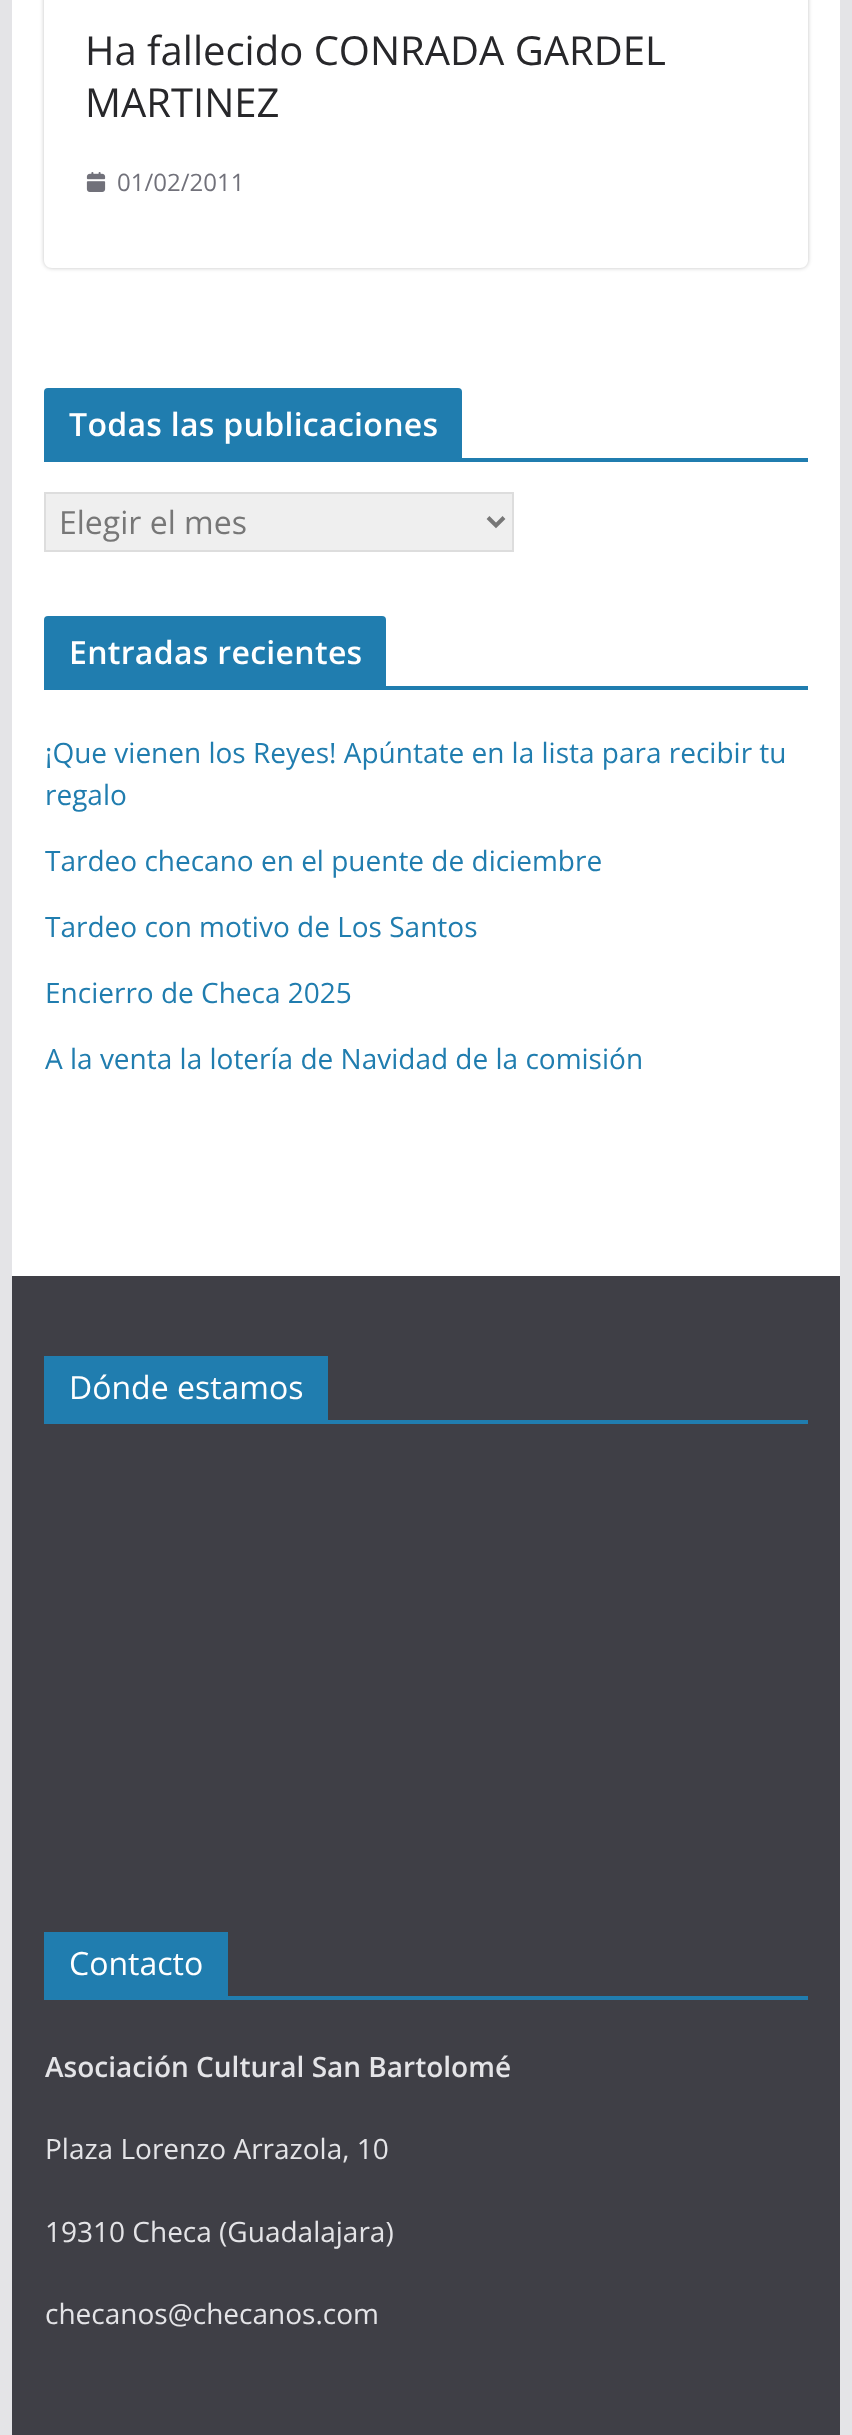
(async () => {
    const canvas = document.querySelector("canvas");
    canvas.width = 852;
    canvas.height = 2435;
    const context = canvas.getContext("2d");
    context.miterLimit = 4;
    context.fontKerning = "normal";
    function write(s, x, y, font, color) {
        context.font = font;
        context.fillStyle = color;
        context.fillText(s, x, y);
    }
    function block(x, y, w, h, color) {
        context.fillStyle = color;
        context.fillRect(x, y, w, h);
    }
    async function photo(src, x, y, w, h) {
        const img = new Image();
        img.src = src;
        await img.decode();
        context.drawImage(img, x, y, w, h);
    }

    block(0, 0, 852, 2435, "rgb(228, 228, 231)");
    block(12, 0, 828, 1276, "rgb(255, 255, 255)");
    context.save();
    context.beginPath();
    context.moveTo(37, 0);
    context.lineTo(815, 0);
    context.lineTo(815, 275);
    context.lineTo(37, 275);
    context.closePath();
    context.moveTo(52, -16);
    context.lineTo(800, -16);
    context.bezierCurveTo(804.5, -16, 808, -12.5, 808, -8);
    context.lineTo(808, 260);
    context.bezierCurveTo(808, 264.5, 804.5, 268, 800, 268);
    context.lineTo(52, 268);
    context.bezierCurveTo(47.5, 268, 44, 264.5, 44, 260);
    context.lineTo(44, -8);
    context.bezierCurveTo(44, -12.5, 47.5, -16, 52, -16);
    context.closePath();
    context.clip("evenodd");
    context.fillStyle = "rgba(0, 0, 0, 0.24)";
    context.filter = "blur(2px)";
    context.beginPath();
    context.roundRect(44, -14, 764, 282, 8);
    context.fill();
    context.filter = "none";
    context.restore();
    write("Ha fallecido CONRADA GARDEL", 85, 65, "40px Open Sans", "rgb(39, 39, 42)");
    write("MARTINEZ", 85, 117, "40px Open Sans", "rgb(39, 39, 42)");
    await photo("media/1.png", 86, 172, 20, 20);
    write("01/02/2011", 117, 191, "24px Open Sans", "rgb(113, 113, 122)");
    block(44, 458, 764, 4, "rgb(32, 125, 175)");
    context.beginPath();
    context.roundRect(44, 388, 418, 70, [4, 4, 0, 0]);
    context.fill();
    context.letterSpacing = "0.3px";
    write("Todas las publicaciones", 69, 436, "600 32px Open Sans", "rgb(255, 255, 255)");
    context.fillStyle = "rgb(239, 239, 239)";
    context.beginPath();
    context.rect(45, 493, 468, 58);
    context.fill();
    context.strokeStyle = "rgb(221, 221, 221)";
    context.lineWidth = 2;
    context.stroke();
    context.beginPath();
    context.moveTo(488, 517.5);
    context.lineTo(496, 525.5);
    context.lineTo(504, 517.5);
    context.strokeStyle = "rgb(119, 119, 119)";
    context.lineWidth = 4;
    context.stroke();
    context.letterSpacing = "0px";
    write("Elegir el mes", 59, 534, "32px Open Sans", "rgb(119, 119, 119)");
    block(44, 686, 764, 4, "rgb(32, 125, 175)");
    context.beginPath();
    context.roundRect(44, 616, 342, 70, [4, 4, 0, 0]);
    context.fill();
    context.letterSpacing = "0.3px";
    write("Entradas recientes", 69, 664, "600 32px Open Sans", "rgb(255, 255, 255)");
    context.letterSpacing = "0px";
    write("¡Que vienen los Reyes! Apúntate en la lista para recibir tu", 45, 763, "28px Open Sans", "rgb(32, 125, 175)");
    write("regalo", 45, 805, "28px Open Sans", "rgb(32, 125, 175)");
    write("Tardeo checano en el puente de diciembre", 45, 871, "28px Open Sans", "rgb(32, 125, 175)");
    write("Tardeo con motivo de Los Santos", 45, 937, "28px Open Sans", "rgb(32, 125, 175)");
    write("Encierro de Checa 2025", 45, 1003, "28px Open Sans", "rgb(32, 125, 175)");
    write("A la venta la lotería de Navidad de la comisión", 45, 1069, "28px Open Sans", "rgb(32, 125, 175)");
    block(12, 1276, 828, 1159, "rgb(63, 63, 70)");
    block(44, 1420, 764, 4, "rgb(32, 125, 175)");
    block(44, 1356, 284, 64, "rgb(32, 125, 175)");
    write("Dónde estamos", 69, 1399, "32px Open Sans", "rgb(255, 255, 255)");
    block(44, 1996, 764, 4, "rgb(32, 125, 175)");
    block(44, 1932, 184, 64, "rgb(32, 125, 175)");
    write("Contacto", 69, 1975, "32px Open Sans", "rgb(255, 255, 255)");
    write("Asociación Cultural San Bartolomé", 45, 2077, "600 28px Open Sans", "rgb(228, 228, 231)");
    write("Plaza Lorenzo Arrazola, 10", 45, 2159, "28px Open Sans", "rgb(228, 228, 231)");
    write("19310 Checa (Guadalajara)", 45, 2242, "28px Open Sans", "rgb(228, 228, 231)");
    write("checanos@checanos.com", 45, 2324, "28px Open Sans", "rgb(228, 228, 231)");
})();
